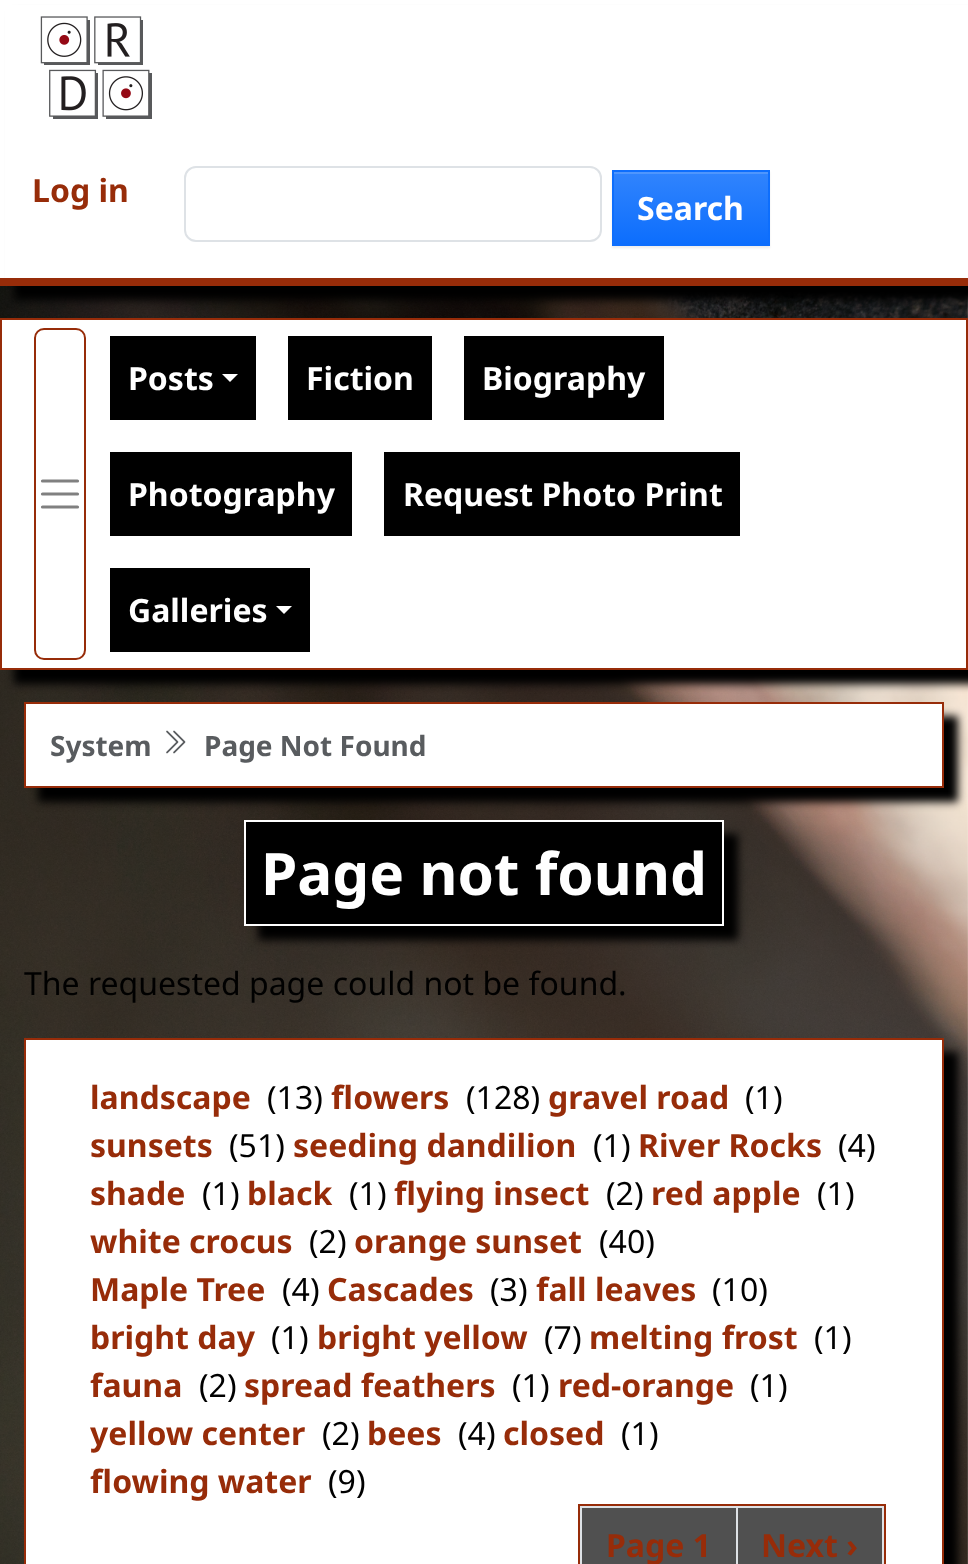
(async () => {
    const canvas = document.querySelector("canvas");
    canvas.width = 968;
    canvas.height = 1564;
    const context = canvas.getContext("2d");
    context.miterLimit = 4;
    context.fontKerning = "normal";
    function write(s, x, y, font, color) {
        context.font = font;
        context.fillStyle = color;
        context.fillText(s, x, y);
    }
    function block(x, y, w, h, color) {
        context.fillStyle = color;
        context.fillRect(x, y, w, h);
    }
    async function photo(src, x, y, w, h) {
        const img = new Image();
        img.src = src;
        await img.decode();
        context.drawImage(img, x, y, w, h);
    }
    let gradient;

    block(0, 0, 968, 1564, "rgb(255, 255, 255)");
    await photo("media/1.png", 0, 286, 968, 1278);
    context.fillStyle = "rgb(0, 0, 0)";
    context.filter = "blur(4px)";
    context.beginPath();
    context.rect(14, 14, 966, 286);
    context.fill();
    context.filter = "none";
    block(5, 5, 963, 273, "rgb(255, 255, 255)");
    block(0, 278, 968, 8, "rgb(151, 44, 9)");
    await photo("media/2.png", 40, 16, 112, 103);
    write("Log in", 32, 202, "bold 32px Noto Sans", "rgb(151, 44, 9)");
    context.beginPath();
    context.roundRect(185, 167, 416, 74, 11);
    context.strokeStyle = "rgb(222, 226, 230)";
    context.lineWidth = 2;
    context.stroke();
    context.fillStyle = "rgba(0, 0, 0, 0.07)";
    context.filter = "blur(1px)";
    context.beginPath();
    context.rect(612, 172, 158, 76);
    context.fill();
    context.filter = "none";
    gradient = context.createLinearGradient(691, 172, 691, 244);
    gradient.addColorStop(0, "rgb(49, 132, 253)");
    gradient.addColorStop(1, "rgb(13, 110, 253)");
    context.fillStyle = gradient;
    context.fillRect(614, 174, 154, 70);
    block(614, 172, 154, 2, "rgb(79, 150, 253)");
    context.strokeStyle = "rgb(13, 110, 253)";
    context.strokeRect(613, 171, 156, 74);
    write("Search", 637, 220, "bold 32px Noto Sans", "rgb(255, 255, 255)");
    context.fillStyle = "rgb(0, 0, 0)";
    context.filter = "blur(4px)";
    context.beginPath();
    context.rect(14, 332, 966, 352);
    context.fill();
    context.filter = "none";
    context.fillStyle = "rgb(255, 255, 255)";
    context.beginPath();
    context.rect(1, 319, 966, 350);
    context.fill();
    context.strokeStyle = "rgb(151, 44, 9)";
    context.stroke();
    context.beginPath();
    context.roundRect(35, 329, 50, 330, 9);
    context.stroke();
    context.beginPath();
    context.moveTo(42.5, 481);
    context.lineTo(77.5, 481);
    context.moveTo(42.5, 494);
    context.lineTo(77.5, 494);
    context.moveTo(42.5, 507);
    context.lineTo(77.5, 507);
    context.strokeStyle = "rgb(128, 128, 128)";
    context.lineWidth = 3.2;
    context.lineCap = "round";
    context.stroke();
    block(110, 336, 146, 84, "rgb(0, 0, 0)");
    write("Posts", 128, 390, "bold 32px Noto Sans", "rgb(255, 255, 255)");
    context.beginPath();
    context.moveTo(222, 374);
    context.lineTo(238, 374);
    context.lineTo(230, 382);
    context.closePath();
    context.fill();
    block(288, 336, 144, 84, "rgb(0, 0, 0)");
    write("Fiction", 306, 390, "bold 32px Noto Sans", "rgb(255, 255, 255)");
    block(464, 336, 200, 84, "rgb(0, 0, 0)");
    write("Biography", 482, 390, "bold 32px Noto Sans", "rgb(255, 255, 255)");
    block(110, 452, 242, 84, "rgb(0, 0, 0)");
    write("Photography", 128, 506, "bold 32px Noto Sans", "rgb(255, 255, 255)");
    block(384, 452, 356, 84, "rgb(0, 0, 0)");
    write("Request Photo Print", 403, 506, "bold 32px Noto Sans", "rgb(255, 255, 255)");
    block(110, 568, 200, 84, "rgb(0, 0, 0)");
    write("Galleries", 128, 622, "bold 32px Noto Sans", "rgb(255, 255, 255)");
    context.beginPath();
    context.moveTo(276, 606);
    context.lineTo(292, 606);
    context.lineTo(284, 614);
    context.closePath();
    context.fill();
    context.fillStyle = "rgb(0, 0, 0)";
    context.filter = "blur(4px)";
    context.beginPath();
    context.rect(38, 716, 920, 86);
    context.fill();
    context.filter = "none";
    context.fillStyle = "rgb(255, 255, 255)";
    context.beginPath();
    context.rect(25, 703, 918, 84);
    context.fill();
    context.strokeStyle = "rgb(151, 44, 9)";
    context.lineWidth = 2;
    context.stroke();
    write("System", 50, 756, "bold 28px Noto Sans", "rgb(89, 92, 95)");
    await photo("media/3.png", 166, 730, 20, 24);
    write("Page Not Found", 204, 756, "bold 28px Noto Sans", "rgb(89, 92, 95)");
    context.fillStyle = "rgb(0, 0, 0)";
    context.filter = "blur(4px)";
    context.beginPath();
    context.rect(258, 834, 480, 106);
    context.fill();
    context.filter = "none";
    context.beginPath();
    context.rect(245, 821, 478, 104);
    context.fill();
    context.strokeStyle = "rgb(255, 255, 255)";
    context.stroke();
    write("Page not found", 261, 895, "bold 58.5px Noto Sans", "rgb(255, 255, 255)");
    write("The requested page could not be found.", 24, 995, "32px Noto Sans", "rgb(0, 0, 0)");
    context.filter = "blur(4px)";
    context.beginPath();
    context.rect(38, 1052, 920, 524);
    context.fill();
    context.filter = "none";
    context.fillStyle = "rgb(255, 255, 255)";
    context.beginPath();
    context.rect(25, 1039, 918, 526);
    context.fill();
    context.strokeStyle = "rgb(151, 44, 9)";
    context.stroke();
    write("landscape", 90, 1109, "bold 32px Noto Sans", "rgb(151, 44, 9)");
    write("(13)", 267, 1109, "32px Noto Sans", "rgb(0, 0, 0)");
    write("flowers", 331, 1109, "bold 32px Noto Sans", "rgb(151, 44, 9)");
    write("(128)", 466, 1109, "32px Noto Sans", "rgb(0, 0, 0)");
    write("gravel road", 548, 1109, "bold 32px Noto Sans", "rgb(151, 44, 9)");
    write("(1)", 745, 1109, "32px Noto Sans", "rgb(0, 0, 0)");
    write("sunsets", 90, 1157, "bold 32px Noto Sans", "rgb(151, 44, 9)");
    write("(51)", 229, 1157, "32px Noto Sans", "rgb(0, 0, 0)");
    write("seeding dandilion", 293, 1157, "bold 32px Noto Sans", "rgb(151, 44, 9)");
    write("(1)", 593, 1157, "32px Noto Sans", "rgb(0, 0, 0)");
    write("River Rocks", 638, 1157, "bold 32px Noto Sans", "rgb(151, 44, 9)");
    write("(4)", 838, 1157, "32px Noto Sans", "rgb(0, 0, 0)");
    write("shade", 90, 1205, "bold 32px Noto Sans", "rgb(151, 44, 9)");
    write("(1)", 202, 1205, "32px Noto Sans", "rgb(0, 0, 0)");
    write("black", 247, 1205, "bold 32px Noto Sans", "rgb(151, 44, 9)");
    write("(1)", 349, 1205, "32px Noto Sans", "rgb(0, 0, 0)");
    write("flying insect", 394, 1205, "bold 32px Noto Sans", "rgb(151, 44, 9)");
    write("(2)", 606, 1205, "32px Noto Sans", "rgb(0, 0, 0)");
    write("red apple", 651, 1205, "bold 32px Noto Sans", "rgb(151, 44, 9)");
    write("(1)", 817, 1205, "32px Noto Sans", "rgb(0, 0, 0)");
    write("white crocus", 90, 1253, "bold 32px Noto Sans", "rgb(151, 44, 9)");
    write("(2)", 309, 1253, "32px Noto Sans", "rgb(0, 0, 0)");
    write("orange sunset", 354, 1253, "bold 32px Noto Sans", "rgb(151, 44, 9)");
    write("(40)", 599, 1253, "32px Noto Sans", "rgb(0, 0, 0)");
    write("Maple Tree", 90, 1301, "bold 32px Noto Sans", "rgb(151, 44, 9)");
    write("(4)", 282, 1301, "32px Noto Sans", "rgb(0, 0, 0)");
    write("Cascades", 327, 1301, "bold 32px Noto Sans", "rgb(151, 44, 9)");
    write("(3)", 490, 1301, "32px Noto Sans", "rgb(0, 0, 0)");
    write("fall leaves", 536, 1301, "bold 32px Noto Sans", "rgb(151, 44, 9)");
    write("(10)", 712, 1301, "32px Noto Sans", "rgb(0, 0, 0)");
    write("bright day", 90, 1349, "bold 32px Noto Sans", "rgb(151, 44, 9)");
    write("(1)", 271, 1349, "32px Noto Sans", "rgb(0, 0, 0)");
    write("bright yellow", 317, 1349, "bold 32px Noto Sans", "rgb(151, 44, 9)");
    write("(7)", 544, 1349, "32px Noto Sans", "rgb(0, 0, 0)");
    write("melting frost", 589, 1349, "bold 32px Noto Sans", "rgb(151, 44, 9)");
    write("(1)", 814, 1349, "32px Noto Sans", "rgb(0, 0, 0)");
    write("fauna", 90, 1397, "bold 32px Noto Sans", "rgb(151, 44, 9)");
    write("(2)", 199, 1397, "32px Noto Sans", "rgb(0, 0, 0)");
    write("spread feathers", 244, 1397, "bold 32px Noto Sans", "rgb(151, 44, 9)");
    write("(1)", 512, 1397, "32px Noto Sans", "rgb(0, 0, 0)");
    write("red-orange", 558, 1397, "bold 32px Noto Sans", "rgb(151, 44, 9)");
    write("(1)", 750, 1397, "32px Noto Sans", "rgb(0, 0, 0)");
    write("yellow center", 90, 1445, "bold 32px Noto Sans", "rgb(151, 44, 9)");
    write("(2)", 322, 1445, "32px Noto Sans", "rgb(0, 0, 0)");
    write("bees", 367, 1445, "bold 32px Noto Sans", "rgb(151, 44, 9)");
    write("(4)", 458, 1445, "32px Noto Sans", "rgb(0, 0, 0)");
    write("closed", 503, 1445, "bold 32px Noto Sans", "rgb(151, 44, 9)");
    write("(1)", 621, 1445, "32px Noto Sans", "rgb(0, 0, 0)");
    write("flowing water", 90, 1493, "bold 32px Noto Sans", "rgb(151, 44, 9)");
    write("(9)", 328, 1493, "32px Noto Sans", "rgb(0, 0, 0)");
    context.strokeRect(579, 1505, 306, 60);
    context.fillStyle = "rgb(80, 80, 80)";
    context.beginPath();
    context.rect(581, 1507, 156, 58);
    context.fill();
    context.strokeStyle = "rgb(222, 226, 230)";
    context.stroke();
    write("Page 1", 606, 1557, "bold 32px Noto Sans", "rgb(151, 44, 9)");
    context.fillStyle = "rgb(80, 80, 80)";
    context.beginPath();
    context.rect(737, 1507, 146, 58);
    context.fill();
    context.stroke();
    write("Next ›", 761, 1557, "bold 32px Noto Sans", "rgb(151, 44, 9)");
})();
